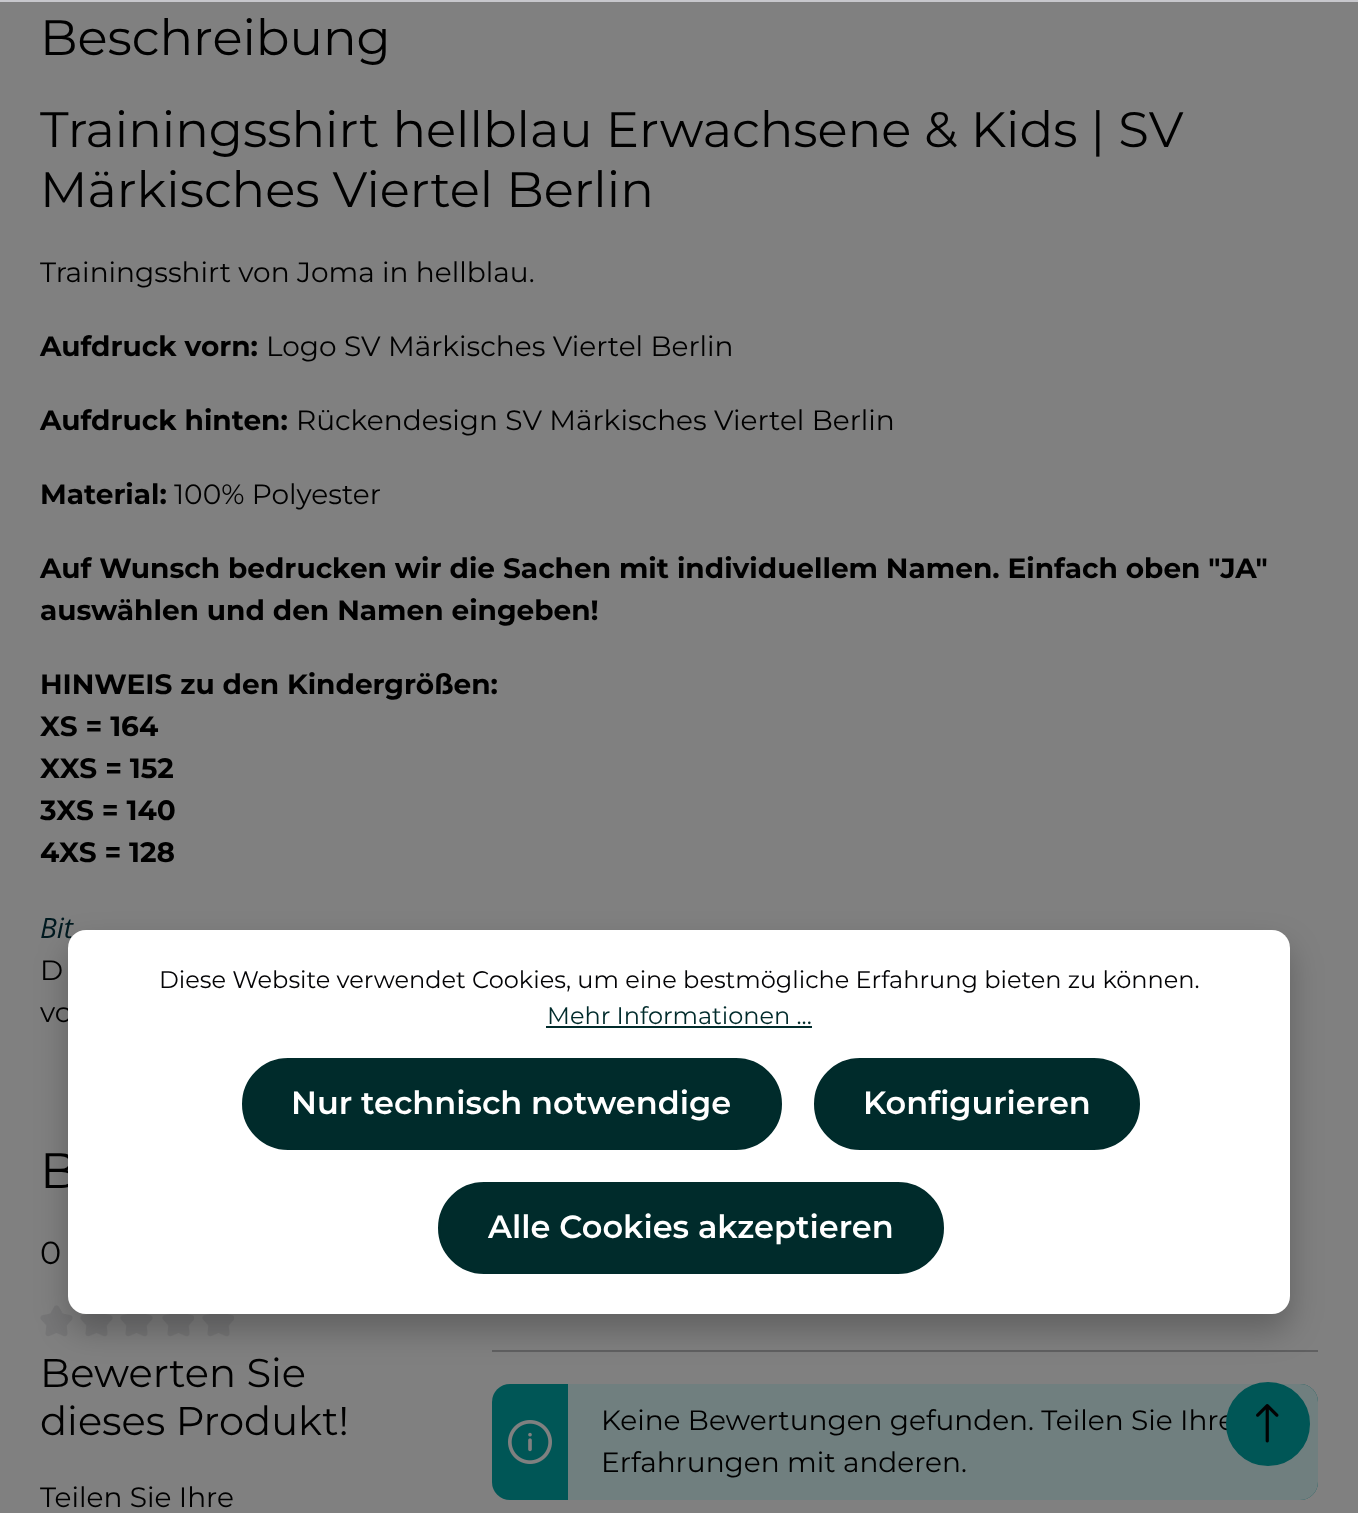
(async () => {
    const canvas = document.querySelector("canvas");
    canvas.width = 1358;
    canvas.height = 1513;
    const context = canvas.getContext("2d");
    context.miterLimit = 4;
    context.fontKerning = "normal";
    function write(s, x, y, font, color) {
        context.font = font;
        context.fillStyle = color;
        context.fillText(s, x, y);
    }
    function block(x, y, w, h, color) {
        context.fillStyle = color;
        context.fillRect(x, y, w, h);
    }
    function card(x, y, w, h, r, color) {
        context.fillStyle = color;
        context.beginPath();
        context.roundRect(x, y, w, h, r);
        context.fill();
    }
    async function photo(src, x, y, w, h) {
        const img = new Image();
        img.src = src;
        await img.decode();
        context.drawImage(img, x, y, w, h);
    }

    block(0, 0, 1358, 1513, "rgb(128, 128, 128)");
    write("Beschreibung", 40, 55, "100 49.75px Montserrat", "rgb(0, 0, 0)");
    write("Trainingsshirt hellblau Erwachsene & Kids | SV", 40, 147, "100 49.75px Montserrat", "rgb(0, 0, 0)");
    write("Märkisches Viertel Berlin", 40, 207, "100 49.75px Montserrat", "rgb(0, 0, 0)");
    write("Trainingsshirt von Joma in hellblau.", 40, 282, "100 28px Montserrat", "rgb(0, 0, 0)");
    write("Aufdruck vorn:", 40, 356, "100 28px 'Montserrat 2'", "rgb(0, 0, 0)");
    write("Logo SV Märkisches Viertel Berlin", 266, 356, "100 28px Montserrat", "rgb(0, 0, 0)");
    write("Aufdruck hinten:", 40, 430, "100 28px 'Montserrat 2'", "rgb(0, 0, 0)");
    write("Rückendesign SV Märkisches Viertel Berlin", 296, 430, "100 28px Montserrat", "rgb(0, 0, 0)");
    write("Material:", 40, 504, "100 28px 'Montserrat 2'", "rgb(0, 0, 0)");
    write("100% Polyester", 174, 504, "100 28px Montserrat", "rgb(0, 0, 0)");
    write("Auf Wunsch bedrucken wir die Sachen mit individuellem Namen. Einfach oben \"JA\"", 40, 578, "100 28px 'Montserrat 2'", "rgb(0, 0, 0)");
    write("auswählen und den Namen eingeben!", 40, 620, "100 28px 'Montserrat 2'", "rgb(0, 0, 0)");
    write("HINWEIS zu den Kindergrößen:", 40, 694, "100 28px 'Montserrat 2'", "rgb(0, 0, 0)");
    write("XS = 164", 40, 736, "100 28px 'Montserrat 2'", "rgb(0, 0, 0)");
    write("XXS = 152", 40, 778, "100 28px 'Montserrat 2'", "rgb(0, 0, 0)");
    write("3XS = 140", 40, 820, "100 28px 'Montserrat 2'", "rgb(0, 0, 0)");
    write("4XS = 128", 40, 862, "100 28px 'Montserrat 2'", "rgb(0, 0, 0)");
    write("Bit", 40, 938, "italic 28px Open Sans", "rgb(0, 26, 32)");
    write("D", 40, 980, "100 28px Montserrat", "rgb(0, 0, 0)");
    write("vo", 40, 1022, "100 28px Montserrat", "rgb(0, 0, 0)");
    write("B", 40, 1188, "100 49.75px Montserrat", "rgb(0, 0, 0)");
    write("0", 40, 1264, "100 32px Montserrat", "rgb(0, 0, 0)");
    await photo("media/1.png", 40, 1305, 33, 32);
    await photo("media/2.png", 80, 1314, 33, 23);
    await photo("media/2.png", 120, 1314, 33, 23);
    await photo("media/3.png", 162, 1314, 32, 23);
    await photo("media/3.png", 202, 1314, 32, 23);
    write("Bewerten Sie", 40, 1387, "100 40px Montserrat", "rgb(0, 0, 0)");
    write("dieses Produkt!", 40, 1435, "100 40px Montserrat", "rgb(0, 0, 0)");
    write("Teilen Sie Ihre", 40, 1507, "100 28px Montserrat", "rgb(0, 0, 0)");
    block(492, 1350, 826, 2, "rgb(96, 96, 97)");
    card(492, 1384, 826, 116, 18, "rgb(0, 86, 86)");
    await photo("media/4.png", 508, 1420, 44, 44);
    context.fillStyle = "rgb(112, 127, 127)";
    context.beginPath();
    context.roundRect(568, 1384, 750, 116, [0, 18, 18, 0]);
    context.fill();
    write("Keine Bewertungen gefunden. Teilen Sie Ihre", 601, 1430, "100 28px Montserrat", "rgb(0, 0, 0)");
    write("Erfahrungen mit anderen.", 601, 1472, "100 28px Montserrat", "rgb(0, 0, 0)");
    block(0, 0, 1358, 2, "rgb(199, 199, 204)");
    context.fillStyle = "rgba(0, 0, 0, 0.25)";
    context.filter = "blur(16px)";
    context.beginPath();
    context.roundRect(68, 946, 1222, 384, 18);
    context.fill();
    context.filter = "none";
    card(68, 930, 1222, 384, 18, "rgb(255, 255, 255)");
    write("Diese Website verwendet Cookies, um eine bestmögliche Erfahrung bieten zu können.", 159, 988, "100 24px Montserrat", "rgb(4, 4, 6)");
    write("Mehr Informationen ...", 547, 1024, "100 24px Montserrat", "rgb(0, 43, 43)");
    block(546, 1026, 266, 2, "rgb(0, 43, 43)");
    context.beginPath();
    context.roundRect(243, 1059, 538, 90, 45);
    context.fill();
    context.strokeStyle = "rgb(0, 43, 43)";
    context.lineWidth = 2;
    context.stroke();
    write("Nur technisch notwendige", 291, 1114, "100 32px 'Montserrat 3'", "rgb(255, 255, 255)");
    context.fillStyle = "rgb(0, 43, 43)";
    context.beginPath();
    context.roundRect(815, 1059, 324, 90, 45);
    context.fill();
    context.stroke();
    write("Konfigurieren", 863, 1114, "100 32px 'Montserrat 3'", "rgb(255, 255, 255)");
    context.fillStyle = "rgb(0, 43, 43)";
    context.beginPath();
    context.roundRect(439, 1183, 504, 90, 45);
    context.fill();
    context.stroke();
    write("Alle Cookies akzeptieren", 488, 1238, "100 32px 'Montserrat 3'", "rgb(255, 255, 255)");
    context.fillStyle = "rgb(0, 86, 86)";
    context.beginPath();
    context.arc(1268, 1424, 41, 0, Math.PI * 2);
    context.fill();
    context.strokeStyle = "rgb(0, 86, 86)";
    context.stroke();
    await photo("media/5.png", 1256, 1404, 23, 39);
})();
